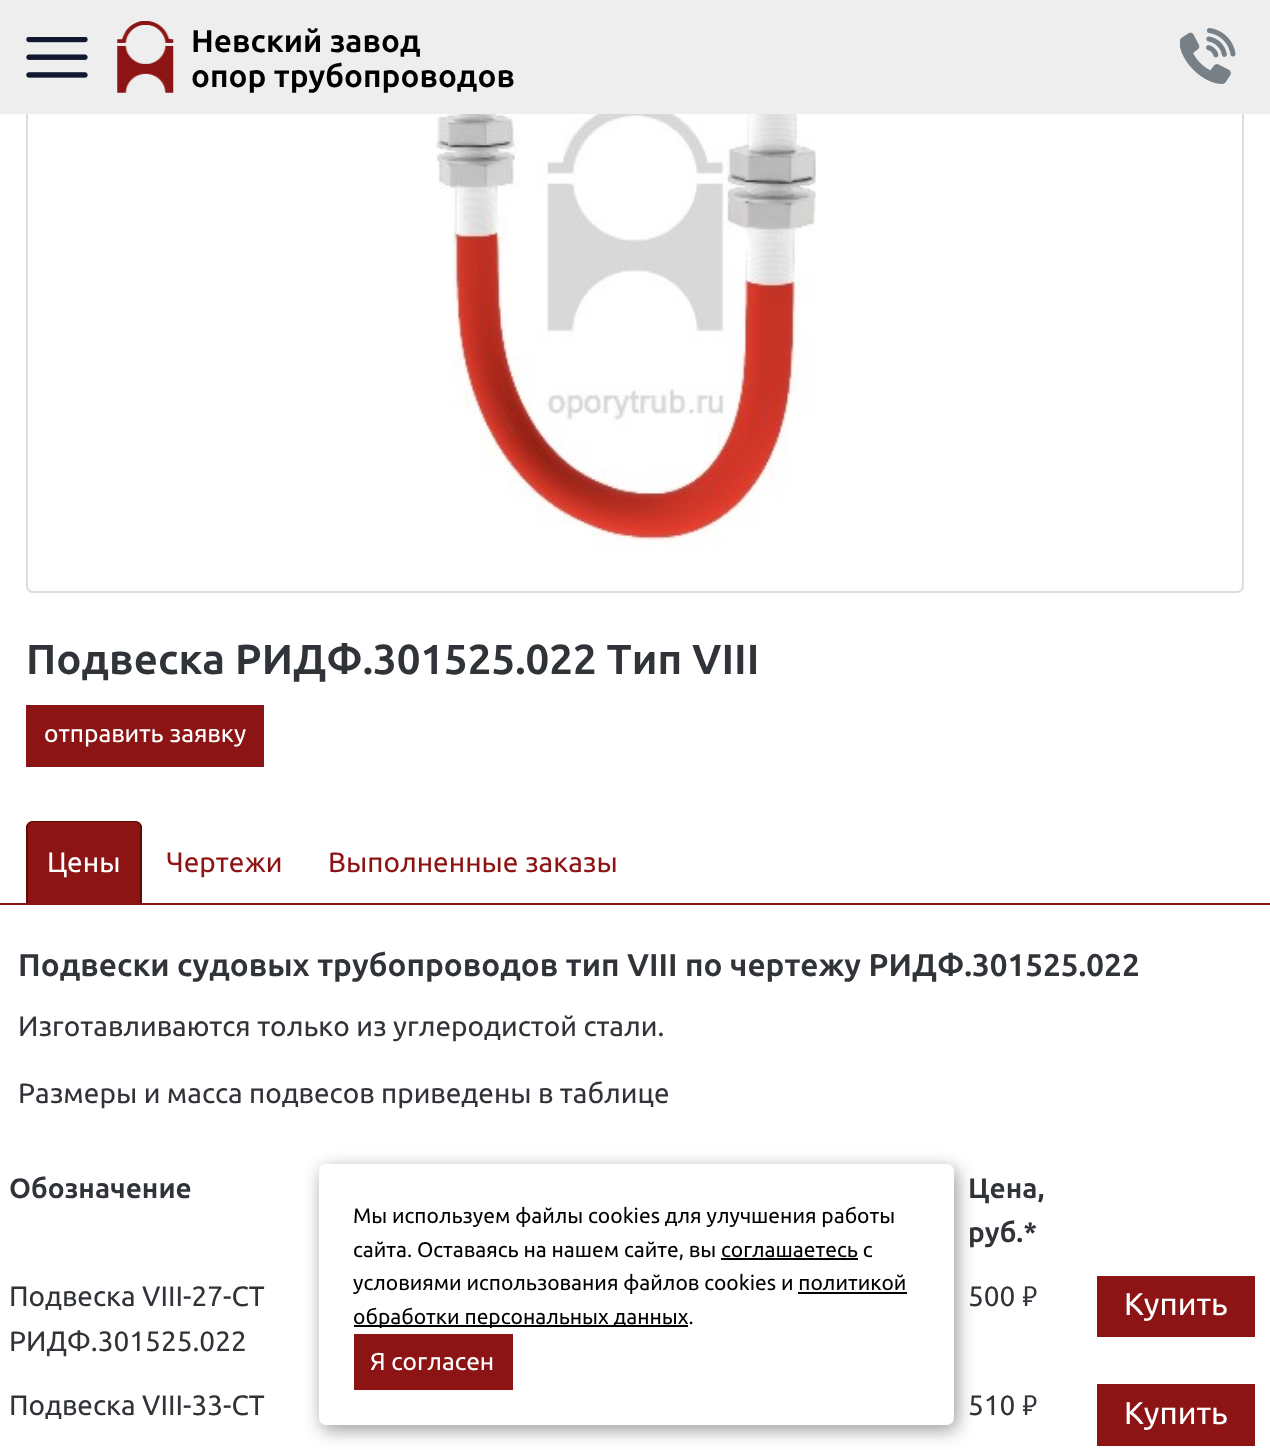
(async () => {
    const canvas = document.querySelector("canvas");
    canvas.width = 1270;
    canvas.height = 1450;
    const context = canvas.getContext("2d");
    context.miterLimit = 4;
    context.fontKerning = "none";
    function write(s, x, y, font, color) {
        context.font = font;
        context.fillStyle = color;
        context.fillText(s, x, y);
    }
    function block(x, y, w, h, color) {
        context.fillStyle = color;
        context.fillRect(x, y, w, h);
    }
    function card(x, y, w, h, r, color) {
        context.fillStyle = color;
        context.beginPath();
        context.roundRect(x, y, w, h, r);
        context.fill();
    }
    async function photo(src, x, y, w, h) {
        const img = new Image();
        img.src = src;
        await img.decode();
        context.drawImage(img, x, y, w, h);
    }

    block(0, 0, 1270, 1450, "rgb(255, 255, 255)");
    context.beginPath();
    context.roundRect(27, -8, 1216, 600, 6);
    context.strokeStyle = "rgb(221, 221, 221)";
    context.lineWidth = 2;
    context.stroke();
    block(0, 0, 1270, 114, "rgb(238, 238, 238)");
    await photo("media/1.png", 26, 37, 62, 41);
    await photo("media/2.png", 117, 21, 57, 72);
    write("Невский завод", 191, 52, "bold 31.5px Ubuntu", "rgb(0, 0, 0)");
    write("опор трубопроводов", 191, 87, "bold 31.5px Ubuntu", "rgb(0, 0, 0)");
    await photo("media/3.png", 1180, 28, 56, 56);
    await photo("media/4.png", 435, 114, 381, 436);
    write("Подвеска РИДФ.301525.022 Тип VIII", 26, 674, "bold 42px Ubuntu", "rgb(48, 51, 56)");
    block(26, 705, 238, 62, "rgb(140, 20, 20)");
    write("отправить заявку", 44, 742, "24.5px Ubuntu", "rgb(255, 255, 255)");
    block(0, 903, 1270, 2, "rgb(140, 20, 20)");
    context.beginPath();
    context.roundRect(26, 821, 116, 84, [7, 7, 0, 0]);
    context.fill();
    context.fillStyle = "rgb(99, 7, 7)";
    context.beginPath();
    context.moveTo(33, 821);
    context.bezierCurveTo(31, 821, 29, 822, 28, 823);
    context.lineTo(29, 824);
    context.bezierCurveTo(30, 823, 32, 822, 33, 822);
    context.lineTo(135, 822);
    context.bezierCurveTo(136, 822, 138, 823, 139, 824);
    context.lineTo(140, 823);
    context.bezierCurveTo(139, 822, 137, 821, 135, 821);
    context.closePath();
    context.fill();
    context.beginPath();
    context.moveTo(140, 823);
    context.lineTo(142, 826);
    context.lineTo(142, 905);
    context.lineTo(140, 903);
    context.lineTo(140, 828);
    context.bezierCurveTo(140, 826, 140, 825, 139, 824);
    context.closePath();
    context.fill();
    context.beginPath();
    context.moveTo(26, 905);
    context.lineTo(28, 903);
    context.lineTo(28, 828);
    context.bezierCurveTo(28, 826, 28, 825, 29, 824);
    context.lineTo(28, 823);
    context.lineTo(26, 826);
    context.closePath();
    context.fill();
    write("Цены", 47, 872, "28px Ubuntu", "rgb(255, 255, 255)");
    write("Чертежи", 166, 872, "28px Ubuntu", "rgb(140, 20, 20)");
    write("Выполненные заказы", 328, 872, "28px Ubuntu", "rgb(140, 20, 20)");
    write("Подвески судовых трубопроводов тип VIII по чертежу РИДФ.301525.022", 18, 976, "bold 31.5px Ubuntu", "rgb(48, 51, 56)");
    write("Изготавливаются только из углеродистой стали.", 18, 1036, "28px Ubuntu", "rgb(48, 51, 56)");
    write("Размеры и масса подвесов приведены в таблице", 18, 1103, "28px Ubuntu", "rgb(48, 51, 56)");
    write("Обозначение", 9, 1198, "bold 28px Ubuntu", "rgb(48, 51, 56)");
    write("Цена,", 968, 1198, "bold 28px Ubuntu", "rgb(48, 51, 56)");
    write("руб.*", 968, 1242, "bold 28px Ubuntu", "rgb(48, 51, 56)");
    write("Подвеска VIII-27-СТ", 9, 1306, "28px Ubuntu", "rgb(48, 51, 56)");
    write("РИДФ.301525.022", 9, 1351, "28px Ubuntu", "rgb(48, 51, 56)");
    write("500", 968, 1306, "28px Ubuntu", "rgb(48, 51, 56)");
    write("руб.", 1022, 1306, "28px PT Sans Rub", "rgb(48, 51, 56)");
    block(1097, 1276, 158, 61, "rgb(140, 20, 20)");
    write("Купить", 1124, 1315, "31.5px Ubuntu", "rgb(255, 255, 255)");
    write("Подвеска VIII-33-СТ", 9, 1415, "28px Ubuntu", "rgb(48, 51, 56)");
    write("510", 968, 1415, "28px Ubuntu", "rgb(48, 51, 56)");
    write("руб.", 1022, 1415, "28px PT Sans Rub", "rgb(48, 51, 56)");
    block(1097, 1384, 158, 62, "rgb(140, 20, 20)");
    write("Купить", 1124, 1424, "31.5px Ubuntu", "rgb(255, 255, 255)");
    context.fillStyle = "rgba(0, 0, 0, 0.4)";
    context.filter = "blur(9px)";
    context.beginPath();
    context.roundRect(322, 1169, 635, 261, 7);
    context.fill();
    context.filter = "none";
    card(319, 1164, 635, 261, 7, "rgb(255, 255, 255)");
    write("Мы используем файлы cookies для улучшения работы", 353, 1223, "21px Ubuntu", "rgb(0, 0, 0)");
    write("сайта. Оставаясь на нашем сайте, вы соглашаетесь с", 353, 1257, "21px Ubuntu", "rgb(0, 0, 0)");
    block(721, 1258, 137, 2, "rgb(0, 0, 0)");
    write("условиями использования файлов cookies и политикой", 353, 1290, "21px Ubuntu", "rgb(0, 0, 0)");
    block(354, 1325, 334, 2, "rgb(0, 0, 0)");
    write("обработки персональных данных.", 353, 1324, "21px Ubuntu", "rgb(0, 0, 0)");
    block(798, 1292, 109, 2, "rgb(0, 0, 0)");
    block(354, 1334, 159, 56, "rgb(140, 20, 20)");
    write("Я согласен", 370, 1370, "24.5px Ubuntu", "rgb(255, 255, 255)");
})();
